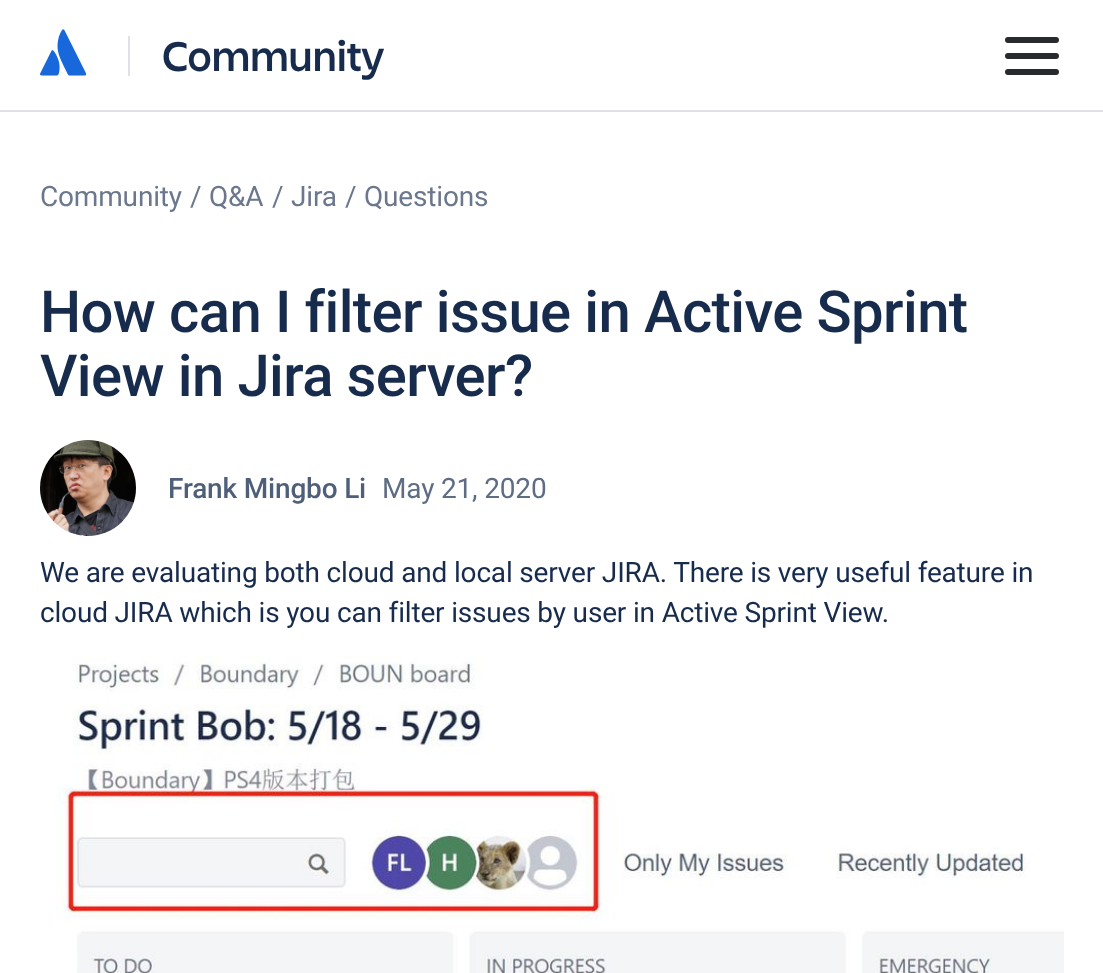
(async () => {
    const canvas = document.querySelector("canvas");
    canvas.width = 1103;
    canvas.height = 973;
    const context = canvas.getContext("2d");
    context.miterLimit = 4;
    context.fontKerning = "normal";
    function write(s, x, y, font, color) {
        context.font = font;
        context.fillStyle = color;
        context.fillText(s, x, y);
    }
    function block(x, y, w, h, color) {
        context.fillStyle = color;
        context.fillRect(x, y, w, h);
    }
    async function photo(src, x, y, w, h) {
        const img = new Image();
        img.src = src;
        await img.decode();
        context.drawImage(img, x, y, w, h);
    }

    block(0, 0, 1103, 973, "rgb(255, 255, 255)");
    block(0, 110, 1103, 2, "rgb(223, 225, 230)");
    await photo("media/1.png", 40, 29, 46, 47);
    block(128, 36, 2, 40, "rgb(223, 225, 230)");
    context.letterSpacing = "-0.17px";
    write("Community", 162, 71, "600 44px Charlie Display", "rgb(23, 43, 77)");
    await photo("media/2.png", 1005, 37, 54, 38);
    write("Community", 40, 206, "28px Roboto", "rgb(107, 119, 140)");
    write("/", 190, 206, "28px Roboto", "rgb(107, 119, 140)");
    write("Q&A", 209, 206, "28px Roboto", "rgb(107, 119, 140)");
    write("/", 272, 206, "28px Roboto", "rgb(107, 119, 140)");
    write("Jira", 291, 206, "28px Roboto", "rgb(107, 119, 140)");
    write("/", 345, 206, "28px Roboto", "rgb(107, 119, 140)");
    write("Questions", 364, 206, "28px Roboto", "rgb(107, 119, 140)");
    context.letterSpacing = "-0.6px";
    write("How can I filter issue in Active Sprint", 40, 332, "500 58px Roboto", "rgb(23, 43, 77)");
    write("View in Jira server?", 40, 396, "500 58px Roboto", "rgb(23, 43, 77)");
    await photo("media/3.png", 40, 440, 96, 96);
    context.letterSpacing = "-0.17px";
    write("Frank Mingbo Li", 168, 498, "500 28px Roboto", "rgb(80, 95, 121)");
    write("May 21, 2020", 382, 498, "28px Roboto", "rgb(94, 108, 132)");
    write("We are evaluating both cloud and local server JIRA. There is very useful feature in", 40, 582, "28px Roboto", "rgb(23, 43, 77)");
    write("cloud JIRA which is you can filter issues by user in Active Sprint View.", 40, 622, "28px Roboto", "rgb(23, 43, 77)");
    await photo("media/4.png", 56, 656, 1008, 317);
})();
